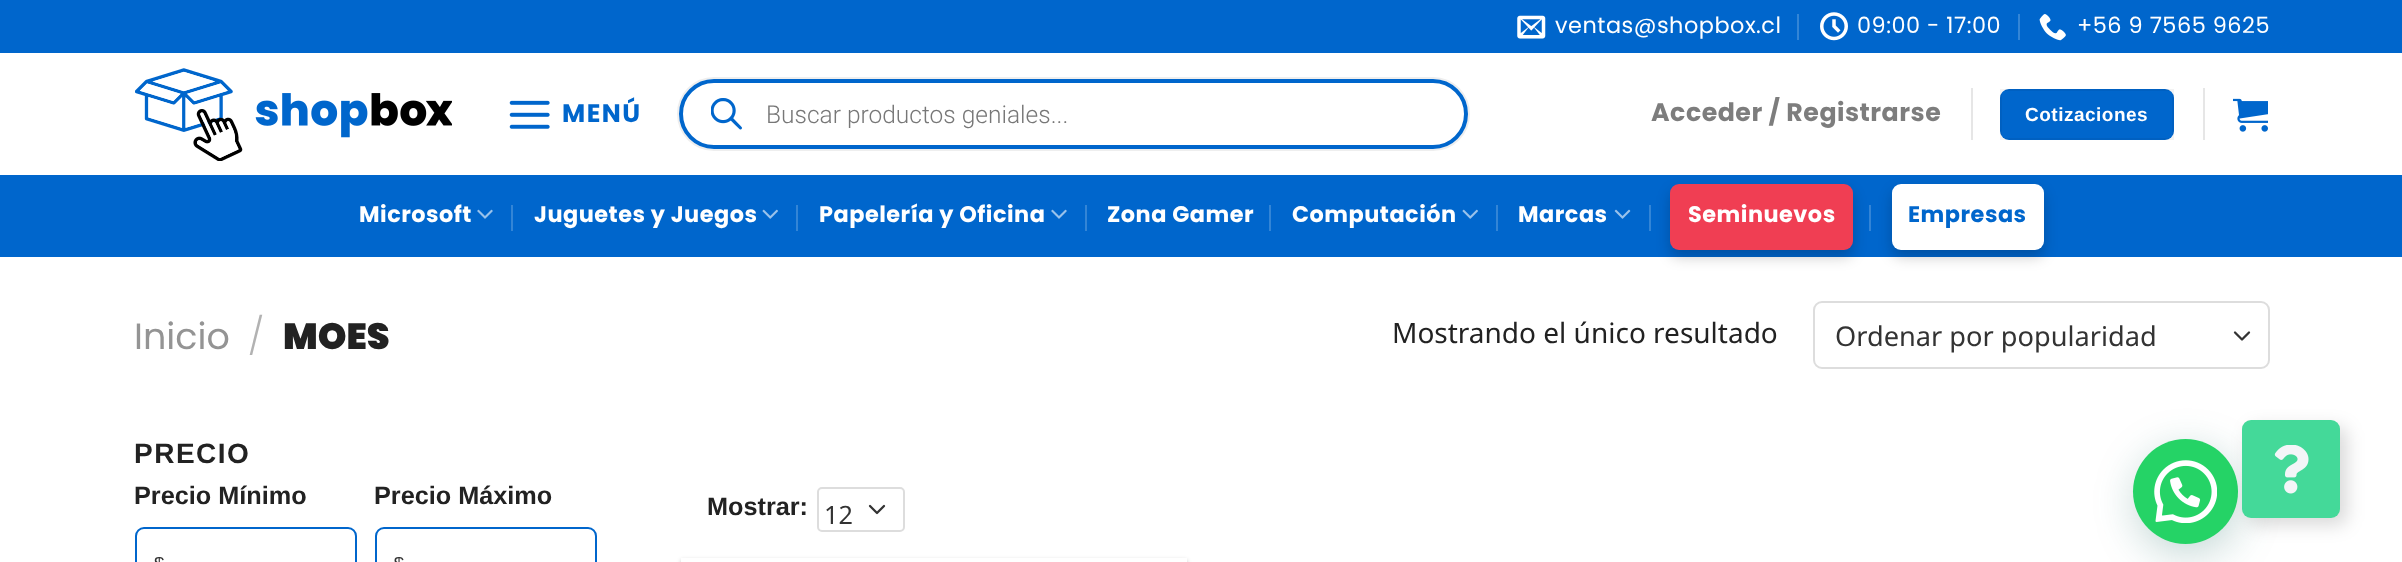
(async () => {
    const canvas = document.querySelector("canvas");
    canvas.width = 2402;
    canvas.height = 562;
    const context = canvas.getContext("2d");
    context.miterLimit = 4;
    context.fontKerning = "normal";
    function write(s, x, y, font, color) {
        context.font = font;
        context.fillStyle = color;
        context.fillText(s, x, y);
    }
    function block(x, y, w, h, color) {
        context.fillStyle = color;
        context.fillRect(x, y, w, h);
    }
    function card(x, y, w, h, r, color) {
        context.fillStyle = color;
        context.beginPath();
        context.roundRect(x, y, w, h, r);
        context.fill();
    }
    async function photo(src, x, y, w, h) {
        const img = new Image();
        img.src = src;
        await img.decode();
        context.drawImage(img, x, y, w, h);
    }

    block(0, 0, 2402, 562, "rgb(255, 255, 255)");
    block(0, 0, 2402, 53, "rgb(0, 102, 204)");
    await photo("media/1.png", 1517, 15, 29, 24);
    context.letterSpacing = "0.5px";
    write("ventas@shopbox.cl", 1555, 33, "22.4px Poppins", "rgb(255, 255, 255)");
    block(1797, 14, 2, 26, "rgb(51, 133, 214)");
    await photo("media/2.png", 1820, 12, 28, 29);
    write("09:00 - 17:00", 1857, 33, "22.4px Poppins", "rgb(255, 255, 255)");
    block(2018, 14, 2, 26, "rgb(51, 133, 214)");
    await photo("media/3.png", 2039, 14, 27, 27);
    write("+56 9 7565 9625", 2077, 33, "22.4px Poppins", "rgb(255, 255, 255)");
    await photo("media/4.png", 135, 68, 317, 93);
    await photo("media/5.png", 509, 100, 41, 29);
    context.letterSpacing = "1.5px";
    write("MENÚ", 562, 122, "bold 25.25px Poppins", "rgb(0, 102, 204)");
    context.beginPath();
    context.roundRect(678, 78, 791, 72, 36);
    context.strokeStyle = "rgb(238, 238, 238)";
    context.lineWidth = 2;
    context.stroke();
    context.fillStyle = "rgb(255, 255, 255)";
    context.beginPath();
    context.roundRect(681, 81, 785, 66, 33);
    context.fill();
    context.strokeStyle = "rgb(0, 102, 204)";
    context.lineWidth = 4;
    context.stroke();
    await photo("media/6.png", 711, 98, 31, 32);
    context.letterSpacing = "0px";
    write("Buscar productos geniales...", 766, 123, "300 24.5px Roboto", "rgb(119, 119, 119)");
    context.letterSpacing = "0.5px";
    write("Acceder / Registrarse", 1651, 121, "bold 25.25px Poppins", "rgb(125, 125, 125)");
    block(1971, 88, 2, 52, "rgb(230, 230, 230)");
    card(2000, 89, 174, 51, 9, "rgb(0, 102, 204)");
    context.strokeStyle = "rgba(0, 0, 0, 0.05)";
    context.lineWidth = 2;
    context.strokeRect(2001, 90, 172, 49);
    write("Cotizaciones", 2025, 121, "bold 19px Liberation Sans", "rgb(255, 255, 255)");
    block(2203, 88, 2, 52, "rgb(230, 230, 230)");
    await photo("media/7.png", 2233, 98, 35, 34);
    block(0, 175, 2402, 82, "rgb(0, 102, 204)");
    write("Microsoft", 359, 222, "bold 22.4px Poppins", "rgb(255, 255, 255)");
    await photo("media/8.png", 477, 209, 16, 10);
    block(511, 205, 2, 26, "rgb(51, 133, 214)");
    write("Juguetes y Juegos", 534, 222, "bold 22.4px Poppins", "rgb(255, 255, 255)");
    await photo("media/9.png", 762, 209, 16, 10);
    block(796, 205, 2, 26, "rgb(51, 133, 214)");
    write("Papelería y Oficina", 819, 222, "bold 22.4px Poppins", "rgb(255, 255, 255)");
    await photo("media/8.png", 1051, 209, 16, 10);
    block(1085, 205, 2, 26, "rgb(51, 133, 214)");
    write("Zona Gamer", 1107, 222, "bold 22.4px Poppins", "rgb(255, 255, 255)");
    block(1269, 205, 2, 26, "rgb(51, 133, 214)");
    write("Computación", 1292, 222, "bold 22.4px Poppins", "rgb(255, 255, 255)");
    await photo("media/9.png", 1462, 209, 16, 10);
    block(1496, 205, 2, 26, "rgb(51, 133, 214)");
    write("Marcas", 1518, 222, "bold 22.4px Poppins", "rgb(255, 255, 255)");
    await photo("media/10.png", 1614, 209, 17, 10);
    context.fillStyle = "rgba(0, 0, 0, 0.2)";
    context.filter = "blur(7px)";
    context.beginPath();
    context.roundRect(1670, 191, 183, 66, 9);
    context.fill();
    context.filter = "none";
    card(1670, 184, 183, 66, 9, "rgb(240, 62, 83)");
    block(1649, 205, 2, 26, "rgb(51, 133, 214)");
    write("Seminuevos", 1688, 222, "bold 22.4px Poppins", "rgb(255, 255, 255)");
    context.fillStyle = "rgba(0, 0, 0, 0.2)";
    context.filter = "blur(7px)";
    context.beginPath();
    context.roundRect(1892, 191, 152, 66, 9);
    context.fill();
    context.filter = "none";
    card(1892, 184, 152, 66, 9, "rgb(255, 255, 255)");
    block(1869, 205, 2, 26, "rgb(51, 132, 214)");
    write("Empresas", 1908, 222, "bold 22.4px Poppins", "rgb(0, 102, 204)");
    context.letterSpacing = "0px";
    write("Inicio", 134, 349, "36.5px Poppins", "rgb(148, 148, 148)");
    write("/", 248, 349, "300 36.5px Poppins", "rgb(178, 178, 178)");
    write("MOES", 283, 349, "900 36.5px Poppins", "rgb(34, 34, 34)");
    write("Mostrando el único resultado", 1392, 343, "28px Noto Sans", "rgb(34, 34, 34)");
    context.beginPath();
    context.moveTo(2235, 332.5);
    context.lineTo(2242, 339.5);
    context.lineTo(2249, 332.5);
    context.strokeStyle = "rgb(51, 51, 51)";
    context.lineWidth = 2.3;
    context.lineCap = "round";
    context.lineJoin = "round";
    context.stroke();
    context.beginPath();
    context.roundRect(1814, 302, 455, 66, 8);
    context.strokeStyle = "rgb(221, 221, 221)";
    context.lineWidth = 2;
    context.lineJoin = "miter";
    context.stroke();
    write("Ordenar por popularidad", 1835, 346, "27.2px Noto Sans", "rgb(51, 51, 51)");
    context.letterSpacing = "1.5px";
    write("PRECIO", 134, 463, "bold 28px Liberation Sans", "rgb(34, 34, 34)");
    context.letterSpacing = "0px";
    write("Precio Mínimo", 134, 504, "bold 25.25px Liberation Sans", "rgb(34, 34, 34)");
    write("Precio Máximo", 374, 504, "bold 25.25px Liberation Sans", "rgb(34, 34, 34)");
    await photo("media/11.png", 154, 557, 10, 5);
    context.beginPath();
    context.roundRect(136, 528, 220, 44, 8);
    context.strokeStyle = "rgb(0, 102, 204)";
    context.stroke();
    await photo("media/12.png", 394, 557, 10, 5);
    context.beginPath();
    context.roundRect(376, 528, 220, 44, 8);
    context.stroke();
    write("Mostrar:", 707, 515, "bold 25.25px Liberation Sans", "rgb(34, 34, 34)");
    context.beginPath();
    context.moveTo(870, 506);
    context.lineTo(877, 513);
    context.lineTo(884, 506);
    context.strokeStyle = "rgb(51, 51, 51)";
    context.lineWidth = 2.3;
    context.lineJoin = "round";
    context.stroke();
    context.beginPath();
    context.roundRect(818, 488, 86, 43, 4);
    context.strokeStyle = "rgb(221, 221, 221)";
    context.lineWidth = 2;
    context.lineJoin = "miter";
    context.stroke();
    write("12", 824, 524, "25.25px Noto Sans", "rgb(51, 51, 51)");
    context.fillStyle = "rgba(0, 0, 0, 0.24)";
    context.filter = "blur(2px)";
    context.beginPath();
    context.rect(681, 560, 506, 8);
    context.fill();
    context.filter = "none";
    block(681, 558, 506, 4, "rgb(255, 255, 255)");
    context.fillStyle = "rgba(7, 94, 84, 0.24)";
    context.filter = "blur(21px)";
    context.beginPath();
    context.roundRect(2135, 450, 105, 105, 52.5);
    context.fill();
    context.filter = "none";
    context.fillStyle = "rgb(37, 211, 102)";
    context.beginPath();
    context.arc(2185.5, 491.5, 52.5, 0, Math.PI * 2);
    context.fill();
    await photo("media/13.png", 2154, 460, 63, 63);
    context.fillStyle = "rgba(0, 0, 0, 0.15)";
    context.filter = "blur(9px)";
    context.beginPath();
    context.roundRect(2249, 427, 98, 98, 9);
    context.fill();
    context.filter = "none";
    card(2242, 420, 98, 98, 9, "rgb(68, 217, 153)");
    await photo("media/14.png", 2274, 445, 35, 49);
})();
